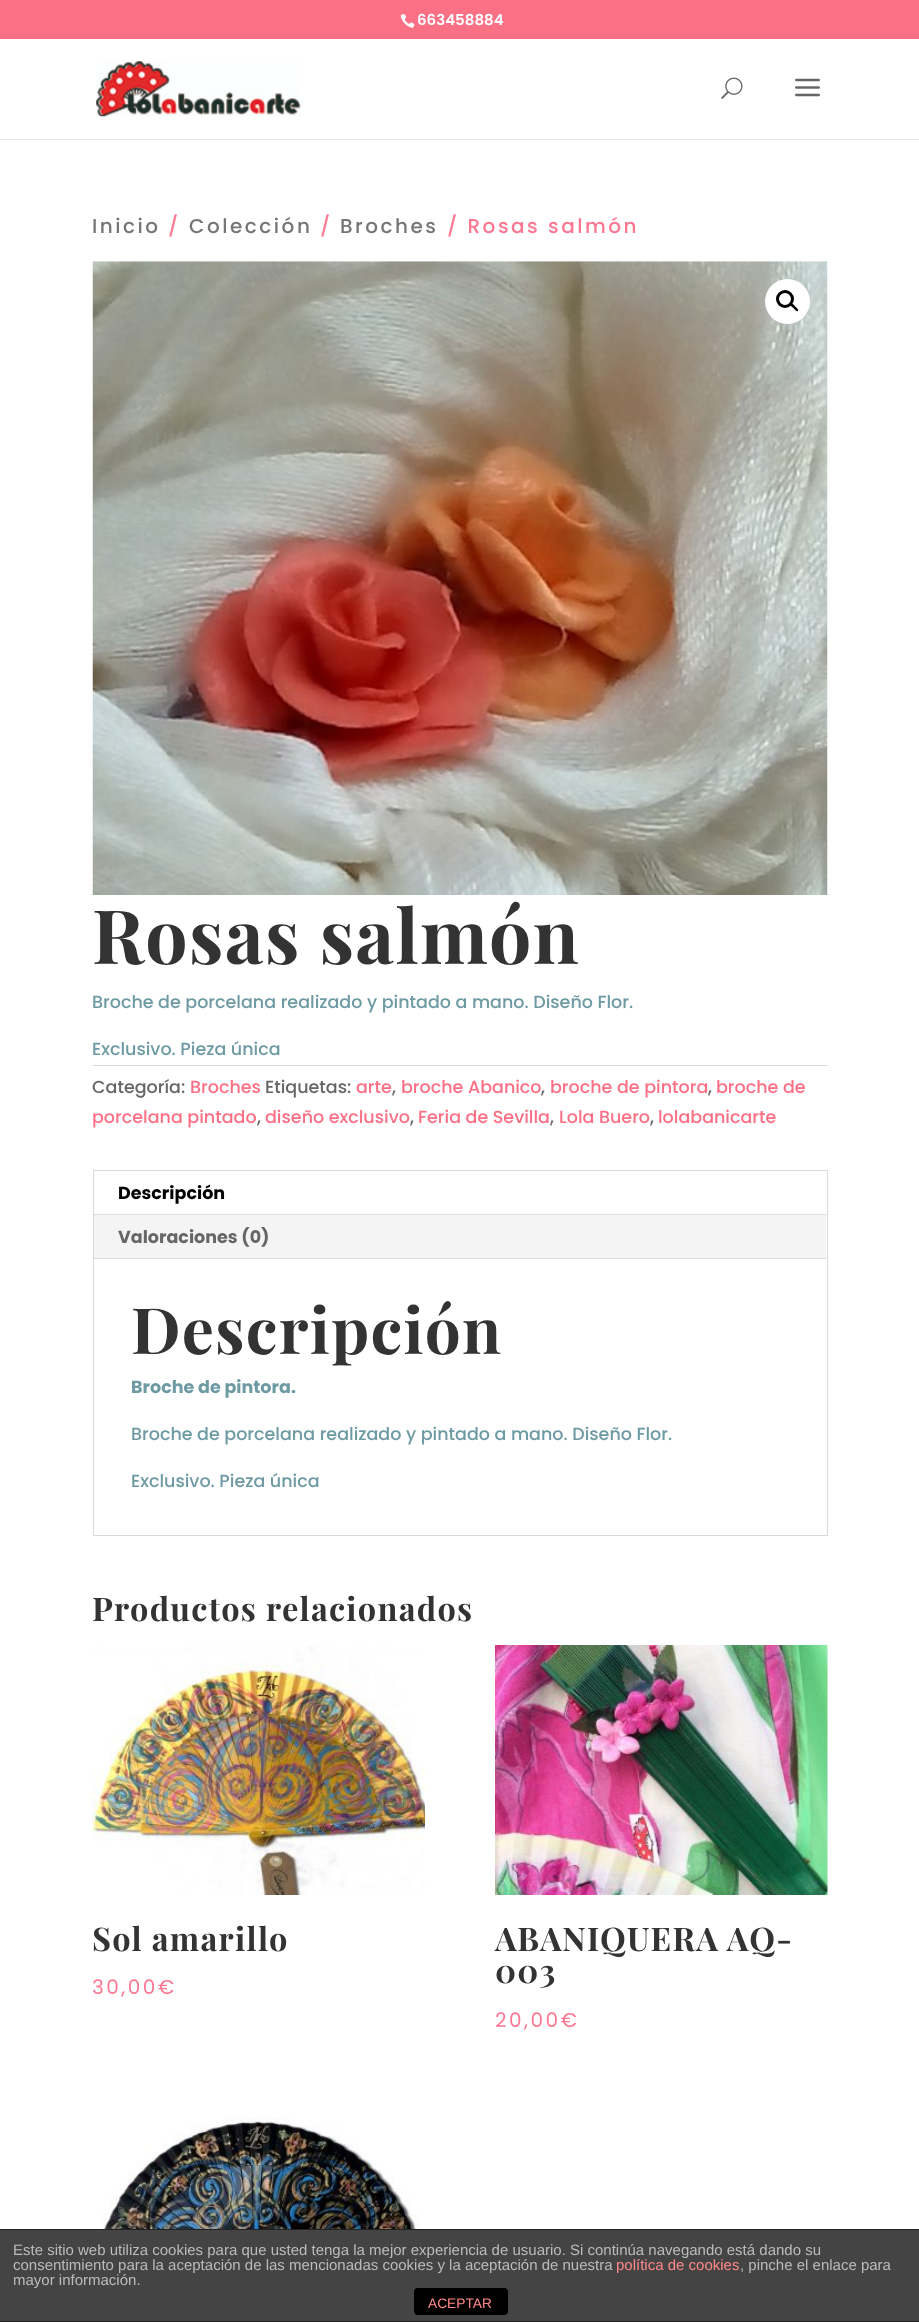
(async () => {
    const canvas = document.querySelector("canvas");
    canvas.width = 919;
    canvas.height = 2322;
    const context = canvas.getContext("2d");
    context.miterLimit = 4;
    context.fontKerning = "normal";
    function write(s, x, y, font, color) {
        context.font = font;
        context.fillStyle = color;
        context.fillText(s, x, y);
    }
    function block(x, y, w, h, color) {
        context.fillStyle = color;
        context.fillRect(x, y, w, h);
    }
    function card(x, y, w, h, r, color) {
        context.fillStyle = color;
        context.beginPath();
        context.roundRect(x, y, w, h, r);
        context.fill();
    }
    async function photo(src, x, y, w, h) {
        const img = new Image();
        img.src = src;
        await img.decode();
        context.drawImage(img, x, y, w, h);
    }

    block(0, 0, 919, 2322, "rgb(255, 255, 255)");
    block(0, 0, 919, 39, "rgb(252, 112, 134)");
    await photo("media/1.png", 400, 14, 15, 14);
    write("663458884", 417, 25, "600 15px Poppins", "rgb(255, 255, 255)");
    block(0, 139, 919, 1, "rgb(230, 230, 230)");
    await photo("media/2.png", 96, 61, 206, 56);
    await photo("media/3.png", 721, 77, 22, 22);
    await photo("media/4.png", 795, 78, 25, 19);
    context.letterSpacing = "2.5px";
    write("Inicio", 92, 233, "500 20px Poppins", "rgb(118, 118, 118)");
    write("/", 168, 233, "500 20px Poppins", "rgb(253, 119, 146)");
    write("Colección", 189, 233, "500 20px Poppins", "rgb(118, 118, 118)");
    write("/", 320, 233, "500 20px Poppins", "rgb(253, 119, 146)");
    write("Broches", 340, 233, "500 20px Poppins", "rgb(118, 118, 118)");
    write("/ Rosas salmón", 447, 233, "500 20px Poppins", "rgb(253, 119, 146)");
    await photo("media/5.png", 92, 261, 736, 634);
    context.fillStyle = "rgb(255, 255, 255)";
    context.beginPath();
    context.arc(787.5, 301.5, 22.5, 0, Math.PI * 2);
    context.fill();
    context.beginPath();
    context.arc(785, 299, 7.5, 0, Math.PI * 2);
    context.strokeStyle = "rgb(0, 0, 0)";
    context.lineWidth = 3;
    context.stroke();
    context.fillStyle = "rgb(0, 0, 0)";
    context.beginPath();
    context.moveTo(790.5, 303.5);
    context.bezierCurveTo(792, 302.5, 794.5, 305.5, 795, 306.5);
    context.bezierCurveTo(796, 307, 799, 309.5, 798, 311);
    context.bezierCurveTo(796.5, 312, 794, 309, 793.5, 308);
    context.bezierCurveTo(792.5, 307.5, 789.5, 305, 790.5, 303.5);
    context.closePath();
    context.fill();
    context.letterSpacing = "1.25px";
    write("Rosas salmón", 92, 964, "bold 75px Playfair Display", "rgb(51, 51, 51)");
    context.letterSpacing = "0px";
    write("Broche de porcelana realizado y pintado a mano. Diseño Flor.", 92, 1008, "500 17.5px Poppins", "rgb(109, 154, 163)");
    write("Exclusivo. Pieza única", 92, 1055, "500 17.5px Poppins", "rgb(109, 154, 163)");
    block(93, 1065, 735, 1, "rgb(218, 218, 218)");
    write("Categoría:", 92, 1093, "500 17.5px Poppins", "rgb(102, 102, 102)");
    write("Broches", 190, 1093, "500 17.5px Poppins", "rgb(252, 112, 134)");
    write("Etiquetas:", 265, 1093, "500 17.5px Poppins", "rgb(102, 102, 102)");
    write("arte", 356, 1093, "500 17.5px Poppins", "rgb(252, 112, 134)");
    write(",", 392, 1093, "500 17.5px Poppins", "rgb(102, 102, 102)");
    write("broche Abanico", 401, 1093, "500 17.5px Poppins", "rgb(252, 112, 134)");
    write(",", 541, 1093, "500 17.5px Poppins", "rgb(102, 102, 102)");
    write("broche de pintora", 550, 1093, "500 17.5px Poppins", "rgb(252, 112, 134)");
    write(",", 708, 1093, "500 17.5px Poppins", "rgb(102, 102, 102)");
    write("broche de", 716, 1093, "500 17.5px Poppins", "rgb(252, 112, 134)");
    write("porcelana pintado", 92, 1123, "500 17.5px Poppins", "rgb(252, 112, 134)");
    write(",", 257, 1123, "500 17.5px Poppins", "rgb(102, 102, 102)");
    write("diseño exclusivo", 265, 1123, "500 17.5px Poppins", "rgb(252, 112, 134)");
    write(",", 410, 1123, "500 17.5px Poppins", "rgb(102, 102, 102)");
    write("Feria de Sevilla", 418, 1123, "500 17.5px Poppins", "rgb(252, 112, 134)");
    write(",", 550, 1123, "500 17.5px Poppins", "rgb(102, 102, 102)");
    write("Lola Buero", 559, 1123, "500 17.5px Poppins", "rgb(252, 112, 134)");
    write(",", 650, 1123, "500 17.5px Poppins", "rgb(102, 102, 102)");
    write("lolabanicarte", 658, 1123, "500 17.5px Poppins", "rgb(252, 112, 134)");
    context.strokeStyle = "rgb(217, 217, 217)";
    context.lineWidth = 1;
    context.strokeRect(93.5, 1170.5, 734, 365);
    block(94, 1215, 732, 43, "rgb(244, 244, 244)");
    block(94, 1214, 732, 1, "rgb(224, 218, 223)");
    write("Descripción", 118, 1199, "bold 17.5px Poppins", "rgb(0, 0, 0)");
    write("Valoraciones (0)", 118, 1243, "bold 17.5px Poppins", "rgb(102, 102, 102)");
    block(94, 1258, 732, 1, "rgb(217, 217, 217)");
    context.letterSpacing = "1.25px";
    write("Descripción", 131, 1354, "bold 63.75px Playfair Display", "rgb(51, 51, 51)");
    context.letterSpacing = "0px";
    write("Broche de pintora.", 131, 1393, "bold 17.5px Poppins", "rgb(109, 154, 163)");
    write("Broche de porcelana realizado y pintado a mano. Diseño Flor.", 131, 1440, "500 17.5px Poppins", "rgb(109, 154, 163)");
    write("Exclusivo. Pieza única", 131, 1487, "500 17.5px Poppins", "rgb(109, 154, 163)");
    context.letterSpacing = "1.25px";
    write("Productos relacionados", 92, 1621, "bold 32.5px Playfair Display", "rgb(51, 51, 51)");
    await photo("media/6.png", 92, 1646, 333, 249);
    write("Sol amarillo", 92, 1951, "bold 32.5px Playfair Display", "rgb(51, 51, 51)");
    context.letterSpacing = "2.5px";
    write("30,00€", 92, 1994, "20px Poppins", "rgb(253, 119, 146)");
    await photo("media/7.png", 495, 1645, 333, 250);
    context.letterSpacing = "1.25px";
    write("ABANIQUERA AQ-", 495, 1951, "bold 32.5px Playfair Display", "rgb(51, 51, 51)");
    write("003", 495, 1983, "bold 32.5px Playfair Display", "rgb(51, 51, 51)");
    context.letterSpacing = "2.5px";
    write("20,00€", 495, 2027, "20px Poppins", "rgb(253, 119, 146)");
    await photo("media/8.png", 92, 2118, 333, 111);
    block(0, 2230, 919, 91, "rgb(68, 68, 68)");
    block(0, 2229, 919, 1, "rgb(34, 34, 34)");
    block(0, 2321, 919, 1, "rgb(34, 34, 34)");
    context.letterSpacing = "0px";
    write("Este sitio web utiliza cookies para que usted tenga la mejor experiencia de usuario. Si continúa navegando está dando su", 13, 2255, "15px Liberation Sans", "rgb(187, 187, 187)");
    write("consentimiento para la aceptación de las mencionadas cookies y la aceptación de nuestra", 13, 2270, "15px Liberation Sans", "rgb(187, 187, 187)");
    write("política de cookies", 616, 2270, "15px Liberation Sans", "rgb(255, 136, 136)");
    write(", pinche el enlace para", 740, 2270, "15px Liberation Sans", "rgb(187, 187, 187)");
    write("mayor información.", 13, 2285, "15px Liberation Sans", "rgb(187, 187, 187)");
    card(414, 2288, 94, 27, 4, "rgb(0, 0, 0)");
    write("ACEPTAR", 428, 2308, "13.75px Liberation Sans", "rgb(255, 136, 136)");
})();
